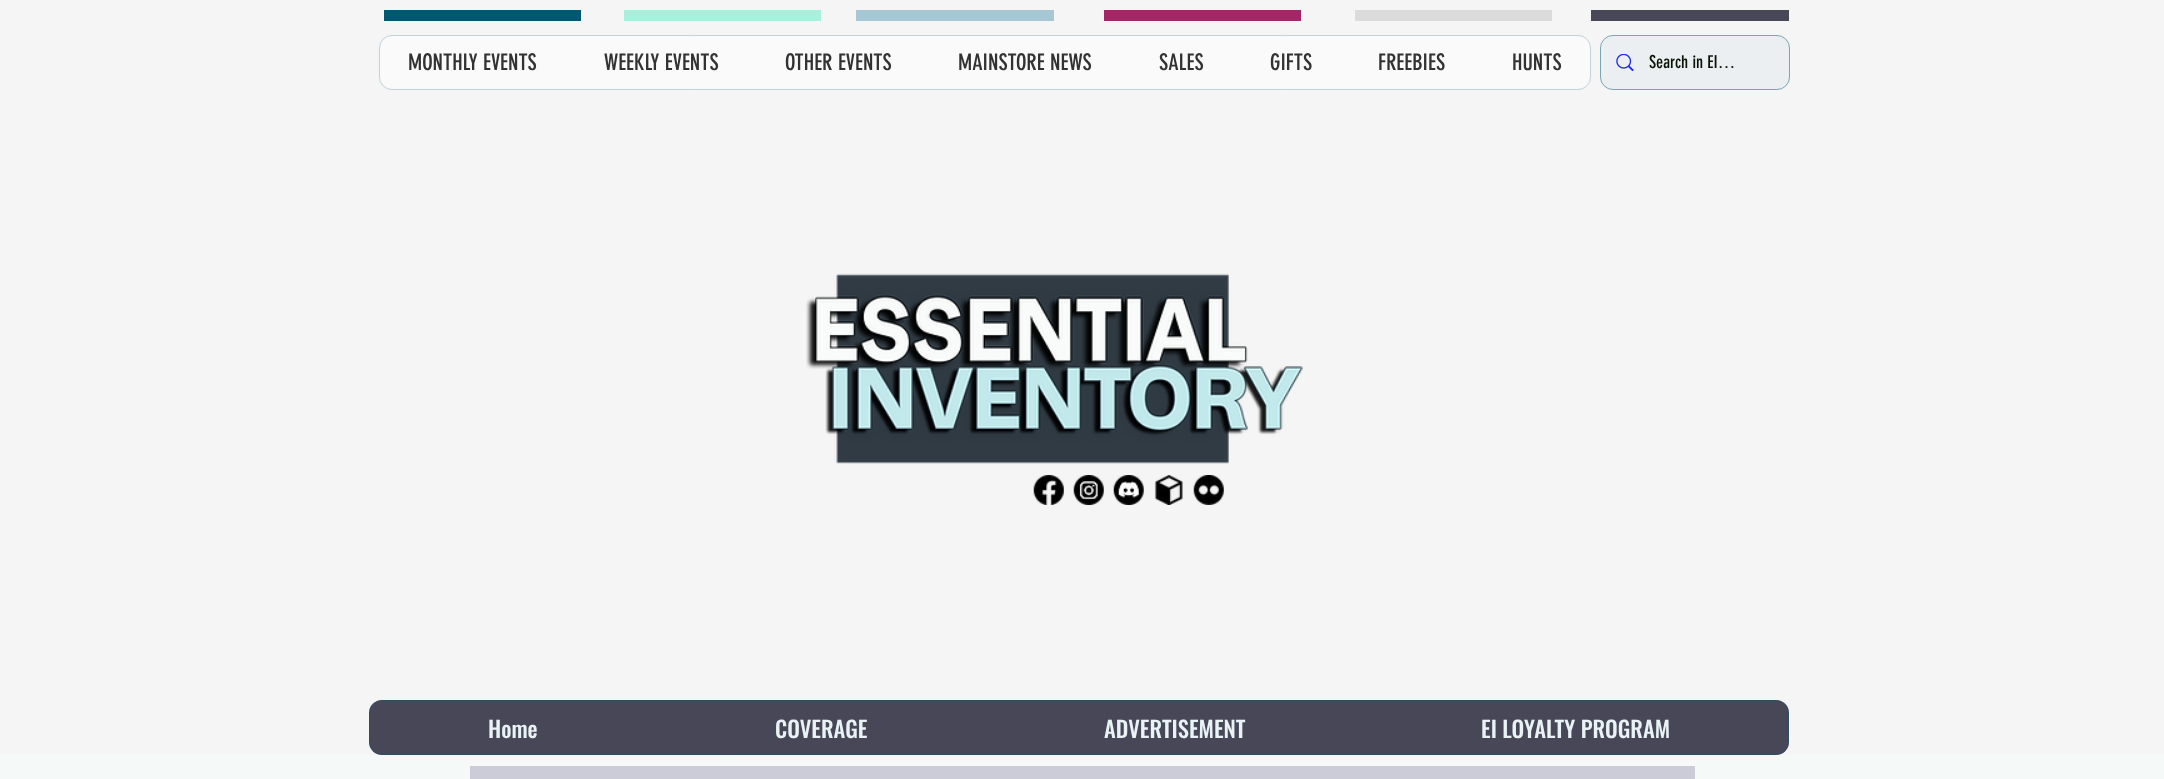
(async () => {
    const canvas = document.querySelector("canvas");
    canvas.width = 2164;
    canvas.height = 779;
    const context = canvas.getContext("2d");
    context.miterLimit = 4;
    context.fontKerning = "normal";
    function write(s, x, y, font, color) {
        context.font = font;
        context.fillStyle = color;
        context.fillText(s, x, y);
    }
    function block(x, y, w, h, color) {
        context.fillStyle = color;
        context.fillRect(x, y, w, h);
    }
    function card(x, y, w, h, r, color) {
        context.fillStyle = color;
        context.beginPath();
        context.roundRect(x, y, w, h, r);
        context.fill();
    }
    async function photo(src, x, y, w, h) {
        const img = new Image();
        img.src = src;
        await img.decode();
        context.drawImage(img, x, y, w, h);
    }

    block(0, 0, 2164, 779, "rgb(245, 249, 248)");
    block(0, 0, 2164, 755, "rgb(245, 245, 245)");
    block(384, 10, 197, 11, "rgb(3, 87, 114)");
    block(624, 10, 197, 11, "rgb(168, 240, 220)");
    block(856, 10, 198, 11, "rgb(165, 200, 212)");
    block(1104, 10, 197, 11, "rgb(161, 39, 103)");
    block(1355, 10, 197, 11, "rgb(219, 219, 219)");
    block(1591, 10, 198, 11, "rgb(72, 71, 88)");
    context.fillStyle = "rgb(250, 250, 250)";
    context.beginPath();
    context.roundRect(379.5, 35.5, 1211, 54, 12.5);
    context.fill();
    context.strokeStyle = "rgb(191, 211, 217)";
    context.stroke();
    write("MONTHLY EVENTS", 408, 70, "22.5px 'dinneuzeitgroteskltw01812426'", "rgb(50, 50, 50)");
    write("WEEKLY EVENTS", 604, 70, "22.5px 'dinneuzeitgroteskltw01812426'", "rgb(50, 50, 50)");
    write("OTHER EVENTS", 785, 70, "22.5px 'dinneuzeitgroteskltw01812426'", "rgb(50, 50, 50)");
    write("MAINSTORE NEWS", 958, 70, "22.5px 'dinneuzeitgroteskltw01812426'", "rgb(50, 50, 50)");
    write("SALES", 1159, 70, "22.5px 'dinneuzeitgroteskltw01812426'", "rgb(50, 50, 50)");
    write("GIFTS", 1270, 70, "22.5px 'dinneuzeitgroteskltw01812426'", "rgb(50, 50, 50)");
    write("FREEBIES", 1378, 70, "22.5px 'dinneuzeitgroteskltw01812426'", "rgb(50, 50, 50)");
    write("HUNTS", 1512, 70, "22.5px 'dinneuzeitgroteskltw01812426'", "rgb(50, 50, 50)");
    context.beginPath();
    context.roundRect(1600.5, 35.5, 189, 54, 12.5);
    context.strokeStyle = "rgb(122, 164, 178)";
    context.stroke();
    card(1601, 36, 188, 53, 11, "rgba(165, 200, 212, 0.12)");
    await photo("media/1.png", 1616, 54, 18, 17);
    write("Search in EI…", 1649, 68, "17.5px 'dinneuzeitgroteskltw01812426'", "rgb(9, 20, 5)");
    await photo("media/2.png", 806, 273, 497, 191);
    await photo("media/3.png", 1033, 475, 31, 30);
    await photo("media/4.png", 1073, 475, 31, 30);
    await photo("media/5.png", 1113, 475, 31, 30);
    await photo("media/6.png", 1154, 475, 29, 30);
    await photo("media/7.png", 1193, 475, 31, 30);
    card(369, 700, 1420, 55, 13, "rgb(72, 71, 88)");
    context.beginPath();
    context.roundRect(369.5, 700.5, 1419, 54, 12.5);
    context.strokeStyle = "rgba(3, 87, 114, 0.36)";
    context.stroke();
    write("Home", 488, 738, "500 22.5px Oswald", "rgb(233, 243, 246)");
    write("COVERAGE", 775, 738, "500 22.5px Oswald", "rgb(233, 243, 246)");
    write("ADVERTISEMENT", 1104, 738, "500 22.5px Oswald", "rgb(233, 243, 246)");
    write("EI LOYALTY PROGRAM", 1481, 738, "500 22.5px Oswald", "rgb(233, 243, 246)");
    block(470, 766, 1225, 13, "rgb(204, 204, 217)");
})();
